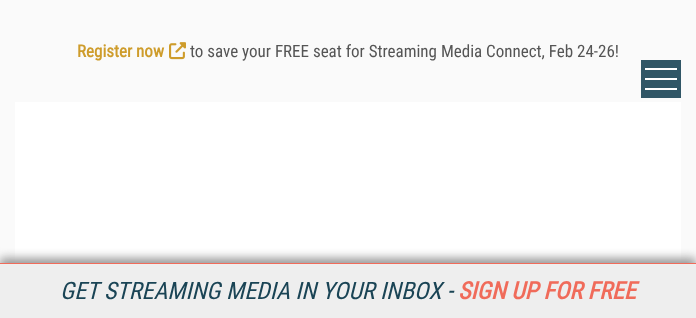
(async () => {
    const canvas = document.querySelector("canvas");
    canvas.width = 696;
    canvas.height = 318;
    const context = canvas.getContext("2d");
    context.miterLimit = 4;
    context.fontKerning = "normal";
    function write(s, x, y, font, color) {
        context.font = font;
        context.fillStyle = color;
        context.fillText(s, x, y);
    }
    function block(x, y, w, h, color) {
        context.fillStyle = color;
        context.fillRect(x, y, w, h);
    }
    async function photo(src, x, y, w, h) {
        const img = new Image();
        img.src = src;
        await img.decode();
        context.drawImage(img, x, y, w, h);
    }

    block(0, 0, 696, 318, "rgb(250, 250, 250)");
    write("Register now", 77, 57, "bold 17px Roboto Condensed", "rgb(206, 156, 43)");
    await photo("media/1.png", 169, 42, 17, 18);
    write("to save your FREE seat for Streaming Media Connect, Feb 24-26!", 190, 57, "17px Roboto Condensed", "rgb(85, 85, 85)");
    block(641, 60, 40, 38, "rgb(48, 86, 102)");
    block(645, 78, 32, 2, "rgb(255, 255, 255)");
    block(645, 68, 32, 2, "rgb(255, 255, 255)");
    block(645, 88, 32, 2, "rgb(255, 255, 255)");
    block(15, 102, 666, 161, "rgb(255, 255, 255)");
    context.fillStyle = "rgb(153, 153, 153)";
    context.filter = "blur(5px)";
    context.beginPath();
    context.rect(0, 258, 696, 55);
    context.fill();
    context.filter = "none";
    block(0, 264, 696, 54, "rgb(238, 238, 238)");
    block(0, 263, 696, 1, "rgb(240, 107, 90)");
    write("GET STREAMING MEDIA IN YOUR INBOX -", 60, 299, "italic 24px Roboto Condensed", "rgb(26, 68, 85)");
    write("SIGN UP FOR FREE", 458, 299, "italic bold 24px Roboto Condensed", "rgb(240, 107, 90)");
})();
